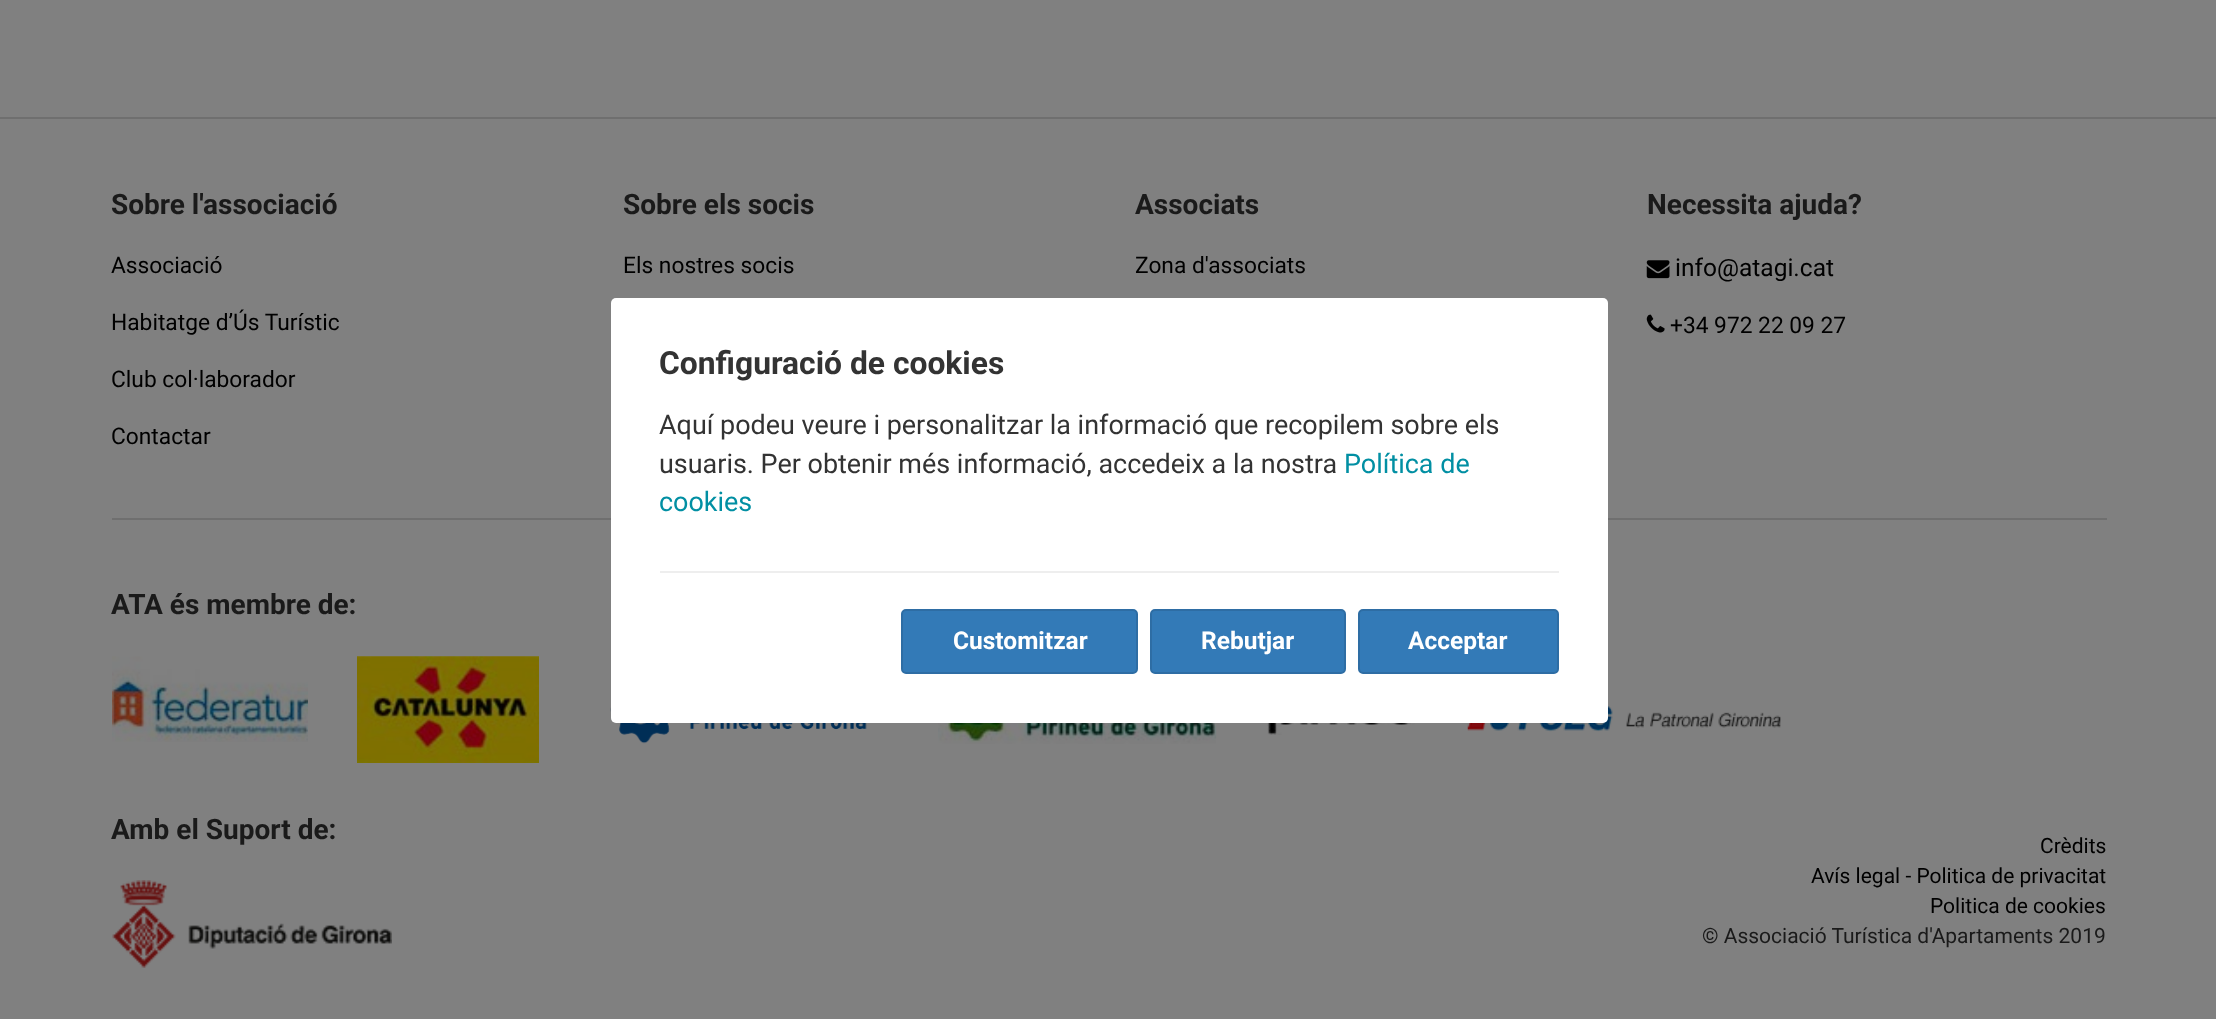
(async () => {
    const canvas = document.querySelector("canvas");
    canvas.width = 2216;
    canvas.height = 1019;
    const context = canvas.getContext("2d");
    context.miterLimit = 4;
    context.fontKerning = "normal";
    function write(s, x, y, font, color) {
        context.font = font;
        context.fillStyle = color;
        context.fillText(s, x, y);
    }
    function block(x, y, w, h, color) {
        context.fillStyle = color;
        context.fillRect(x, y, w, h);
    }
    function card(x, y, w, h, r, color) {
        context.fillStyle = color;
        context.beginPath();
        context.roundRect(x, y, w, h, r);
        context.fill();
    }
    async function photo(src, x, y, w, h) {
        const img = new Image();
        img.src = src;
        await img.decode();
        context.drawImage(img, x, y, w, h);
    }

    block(0, 0, 2216, 1019, "rgb(128, 128, 128)");
    block(0, 117, 2216, 2, "rgb(111, 111, 111)");
    write("Sobre l'associació", 111, 214, "bold 28px Roboto", "rgb(26, 26, 26)");
    write("Associació", 111, 273, "22.75px Roboto", "rgb(0, 0, 0)");
    write("Habitatge d’Ús Turístic", 111, 330, "22.75px Roboto", "rgb(0, 0, 0)");
    write("Club col·laborador", 111, 387, "22.75px Roboto", "rgb(0, 0, 0)");
    write("Contactar", 111, 444, "22.75px Roboto", "rgb(0, 0, 0)");
    write("Sobre els socis", 623, 214, "bold 28px Roboto", "rgb(26, 26, 26)");
    write("Els nostres socis", 623, 273, "22.75px Roboto", "rgb(0, 0, 0)");
    write("Associats", 1135, 214, "bold 28px Roboto", "rgb(26, 26, 26)");
    write("Zona d'associats", 1135, 273, "22.75px Roboto", "rgb(0, 0, 0)");
    write("Necessita ajuda?", 1647, 214, "bold 28px Roboto", "rgb(26, 26, 26)");
    await photo("media/1.png", 1646, 260, 24, 19);
    write("info@atagi.cat", 1675, 276, "24.5px Roboto", "rgb(0, 0, 0)");
    await photo("media/2.png", 1646, 314, 19, 19);
    write("+34 972 22 09 27", 1670, 333, "22.75px Roboto", "rgb(0, 0, 0)");
    block(112, 518, 1995, 2, "rgb(111, 111, 111)");
    write("ATA és membre de:", 111, 614, "bold 28px Roboto", "rgb(26, 26, 26)");
    await photo("media/3.png", 112, 656, 196, 86);
    await photo("media/4.png", 357, 656, 182, 107);
    await photo("media/5.png", 610, 707, 257, 37);
    await photo("media/6.png", 938, 723, 279, 21);
    await photo("media/7.png", 1267, 723, 149, 12);
    await photo("media/8.png", 1467, 689, 314, 43);
    write("Amb el Suport de:", 111, 839, "bold 28px Roboto", "rgb(26, 26, 26)");
    await photo("media/9.png", 112, 880, 280, 88);
    write("Crèdits", 2040, 853, "21px Roboto", "rgb(0, 0, 0)");
    write("Avís legal - Politica de privacitat", 1811, 883, "21px Roboto", "rgb(0, 0, 0)");
    write("Politica de cookies", 1930, 913, "21px Roboto", "rgb(0, 0, 0)");
    write("© Associació Turística d'Apartaments 2019", 1702, 943, "21px Roboto", "rgb(26, 26, 26)");
    card(611, 298, 997, 425, 5, "rgb(255, 255, 255)");
    write("Configuració de cookies", 659, 374, "bold 31.8px Roboto", "rgb(51, 51, 51)");
    block(660, 571, 899, 2, "rgb(238, 238, 238)");
    write("Aquí podeu veure i personalitzar la informació que recopilem sobre els", 659, 434, "26.95px Roboto", "rgb(51, 51, 51)");
    write("usuaris. Per obtenir més informació, accedeix a la nostra", 659, 473, "26.95px Roboto", "rgb(51, 51, 51)");
    write("Política de", 1344, 473, "26.95px Roboto", "rgb(1, 143, 163)");
    write("cookies", 659, 511, "26.95px Roboto", "rgb(1, 143, 163)");
    context.fillStyle = "rgb(51, 122, 183)";
    context.beginPath();
    context.roundRect(902, 610, 235, 63, 4);
    context.fill();
    context.strokeStyle = "rgb(46, 109, 164)";
    context.lineWidth = 2;
    context.stroke();
    write("Customitzar", 953, 649, "bold 24.5px Roboto", "rgb(255, 255, 255)");
    context.fillStyle = "rgb(51, 122, 183)";
    context.beginPath();
    context.roundRect(1151, 610, 194, 63, 4);
    context.fill();
    context.stroke();
    write("Rebutjar", 1201, 649, "bold 24.5px Roboto", "rgb(255, 255, 255)");
    context.fillStyle = "rgb(51, 122, 183)";
    context.beginPath();
    context.roundRect(1359, 610, 199, 63, 4);
    context.fill();
    context.stroke();
    write("Acceptar", 1408, 649, "bold 24.5px Roboto", "rgb(255, 255, 255)");
})();
